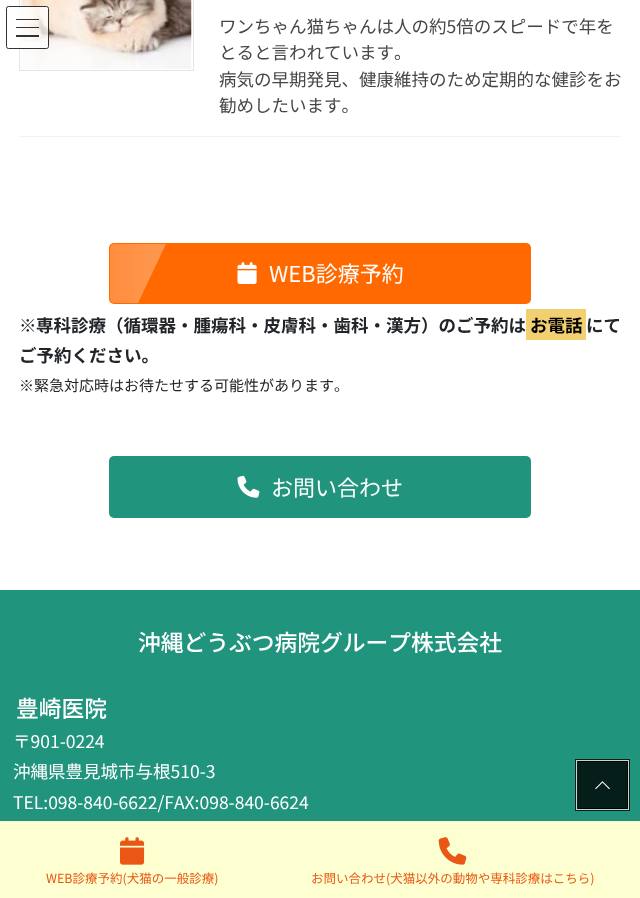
(async () => {
    const canvas = document.querySelector("canvas");
    canvas.width = 640;
    canvas.height = 898;
    const context = canvas.getContext("2d");
    context.miterLimit = 4;
    context.fontKerning = "none";
    function write(s, x, y, font, color) {
        context.font = font;
        context.fillStyle = color;
        context.fillText(s, x, y);
    }
    function block(x, y, w, h, color) {
        context.fillStyle = color;
        context.fillRect(x, y, w, h);
    }
    function card(x, y, w, h, r, color) {
        context.fillStyle = color;
        context.beginPath();
        context.roundRect(x, y, w, h, r);
        context.fill();
    }
    async function photo(src, x, y, w, h) {
        const img = new Image();
        img.src = src;
        await img.decode();
        context.drawImage(img, x, y, w, h);
    }
    let gradient;

    block(0, 0, 640, 898, "rgb(255, 255, 255)");
    context.strokeStyle = "rgb(229, 229, 229)";
    context.strokeRect(19.5, -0.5, 174, 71);
    await photo("media/1.png", 21, 0, 171, 69);
    card(6, 6, 43, 43, 2.5, "rgba(255, 255, 255, 0.8)");
    block(16, 19, 23, 1, "rgba(0, 0, 0, 0.8)");
    block(16, 27, 23, 1, "rgba(0, 0, 0, 0.8)");
    block(16, 35, 23, 2, "rgba(0, 0, 0, 0.8)");
    context.beginPath();
    context.roundRect(6.5, 6.5, 42, 42, 2);
    context.strokeStyle = "rgb(51, 51, 51)";
    context.stroke();
    block(19, 136, 602, 1, "rgb(242, 242, 242)");
    write("ワンちゃん猫ちゃんは人の約5倍のスピードで年を", 219, 33, "17.5px Noto Sans JP", "rgb(70, 70, 70)");
    write("とると言われています。", 219, 59, "17.5px Noto Sans JP", "rgb(70, 70, 70)");
    write("病気の早期発見、健康維持のため定期的な健診をお", 219, 86, "17.5px Noto Sans JP", "rgb(70, 70, 70)");
    write("勧めしたいます。", 219, 112, "17.5px Noto Sans JP", "rgb(70, 70, 70)");
    card(109, 243, 422, 61, 5, "rgb(255, 105, 0)");
    gradient = context.createLinearGradient(-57, 273, 152, 273);
    gradient.addColorStop(0, "rgb(255, 105, 0)");
    gradient.addColorStop(1, "rgb(255, 150, 77)");
    context.fillStyle = gradient;
    context.beginPath();
    context.moveTo(114, 244);
    context.bezierCurveTo(112, 244, 110, 246, 110, 248);
    context.lineTo(110, 299);
    context.bezierCurveTo(110, 301, 112, 303, 114, 303);
    context.lineTo(138, 303);
    context.lineTo(166, 244);
    context.closePath();
    context.fill();
    await photo("media/2.png", 237, 262, 20, 22);
    write("WEB診療予約", 269, 282, "22px Noto Sans JP", "rgb(255, 255, 255)");
    write("※", 19, 332, "17.5px Noto Sans JP", "rgb(33, 37, 41)");
    write("専科診療（循環器・腫瘍科・皮膚科・歯科・漢方）のご予約は", 36, 332, "bold 17.5px Noto Sans JP", "rgb(33, 37, 41)");
    block(526, 309, 60, 31, "rgb(242, 208, 113)");
    write("お電話", 530, 332, "bold 17.5px Noto Sans JP", "rgb(0, 0, 0)");
    write("にて", 586, 332, "bold 17.5px Noto Sans JP", "rgb(33, 37, 41)");
    write("ご予約ください。", 19, 362, "bold 17.5px Noto Sans JP", "rgb(33, 37, 41)");
    write("※緊急対応時はお待たせする可能性があります。", 19, 391, "15px Noto Sans JP", "rgb(33, 37, 41)");
    card(109, 456, 422, 62, 5, "rgb(33, 148, 126)");
    await photo("media/3.png", 237, 475, 23, 23);
    write("お問い合わせ", 271, 496, "22px Noto Sans JP", "rgb(255, 255, 255)");
    block(0, 590, 640, 231, "rgb(33, 148, 126)");
    write("沖縄どうぶつ病院グループ株式会社", 138, 651, "500 22.75px Noto Sans JP", "rgb(255, 255, 255)");
    write("豊崎医院", 16, 717, "500 22.75px Noto Sans JP", "rgb(255, 255, 255)");
    write("〒901-0224", 13, 748, "17.5px Noto Sans JP", "rgb(255, 255, 255)");
    write("沖縄県豊見城市与根510-3", 13, 778, "17.5px Noto Sans JP", "rgb(255, 255, 255)");
    write("TEL:098-840-6622/FAX:098-840-6624", 13, 809, "17.5px Noto Sans JP", "rgb(255, 255, 255)");
    context.strokeStyle = "rgb(7, 30, 25)";
    context.lineWidth = 3;
    context.strokeRect(576.5, 760.5, 52, 49);
    context.strokeStyle = "rgb(205, 210, 209)";
    context.lineWidth = 1;
    context.strokeRect(576.5, 760.5, 52, 49);
    block(578, 761, 50, 48, "rgba(0, 0, 0, 0.8)");
    await photo("media/4.png", 595, 781, 15, 9);
    block(0, 821, 640, 77, "rgb(253, 255, 209)");
    await photo("media/5.png", 120, 837, 25, 28);
    write("WEB診療予約(犬猫の一般診療)", 46, 883, "12.5px Noto Sans JP", "rgb(234, 88, 21)");
    await photo("media/6.png", 438, 837, 29, 28);
    write("お問い合わせ(犬猫以外の動物や専科診療はこちら)", 311, 883, "12.5px Noto Sans JP", "rgb(234, 88, 21)");
})();
